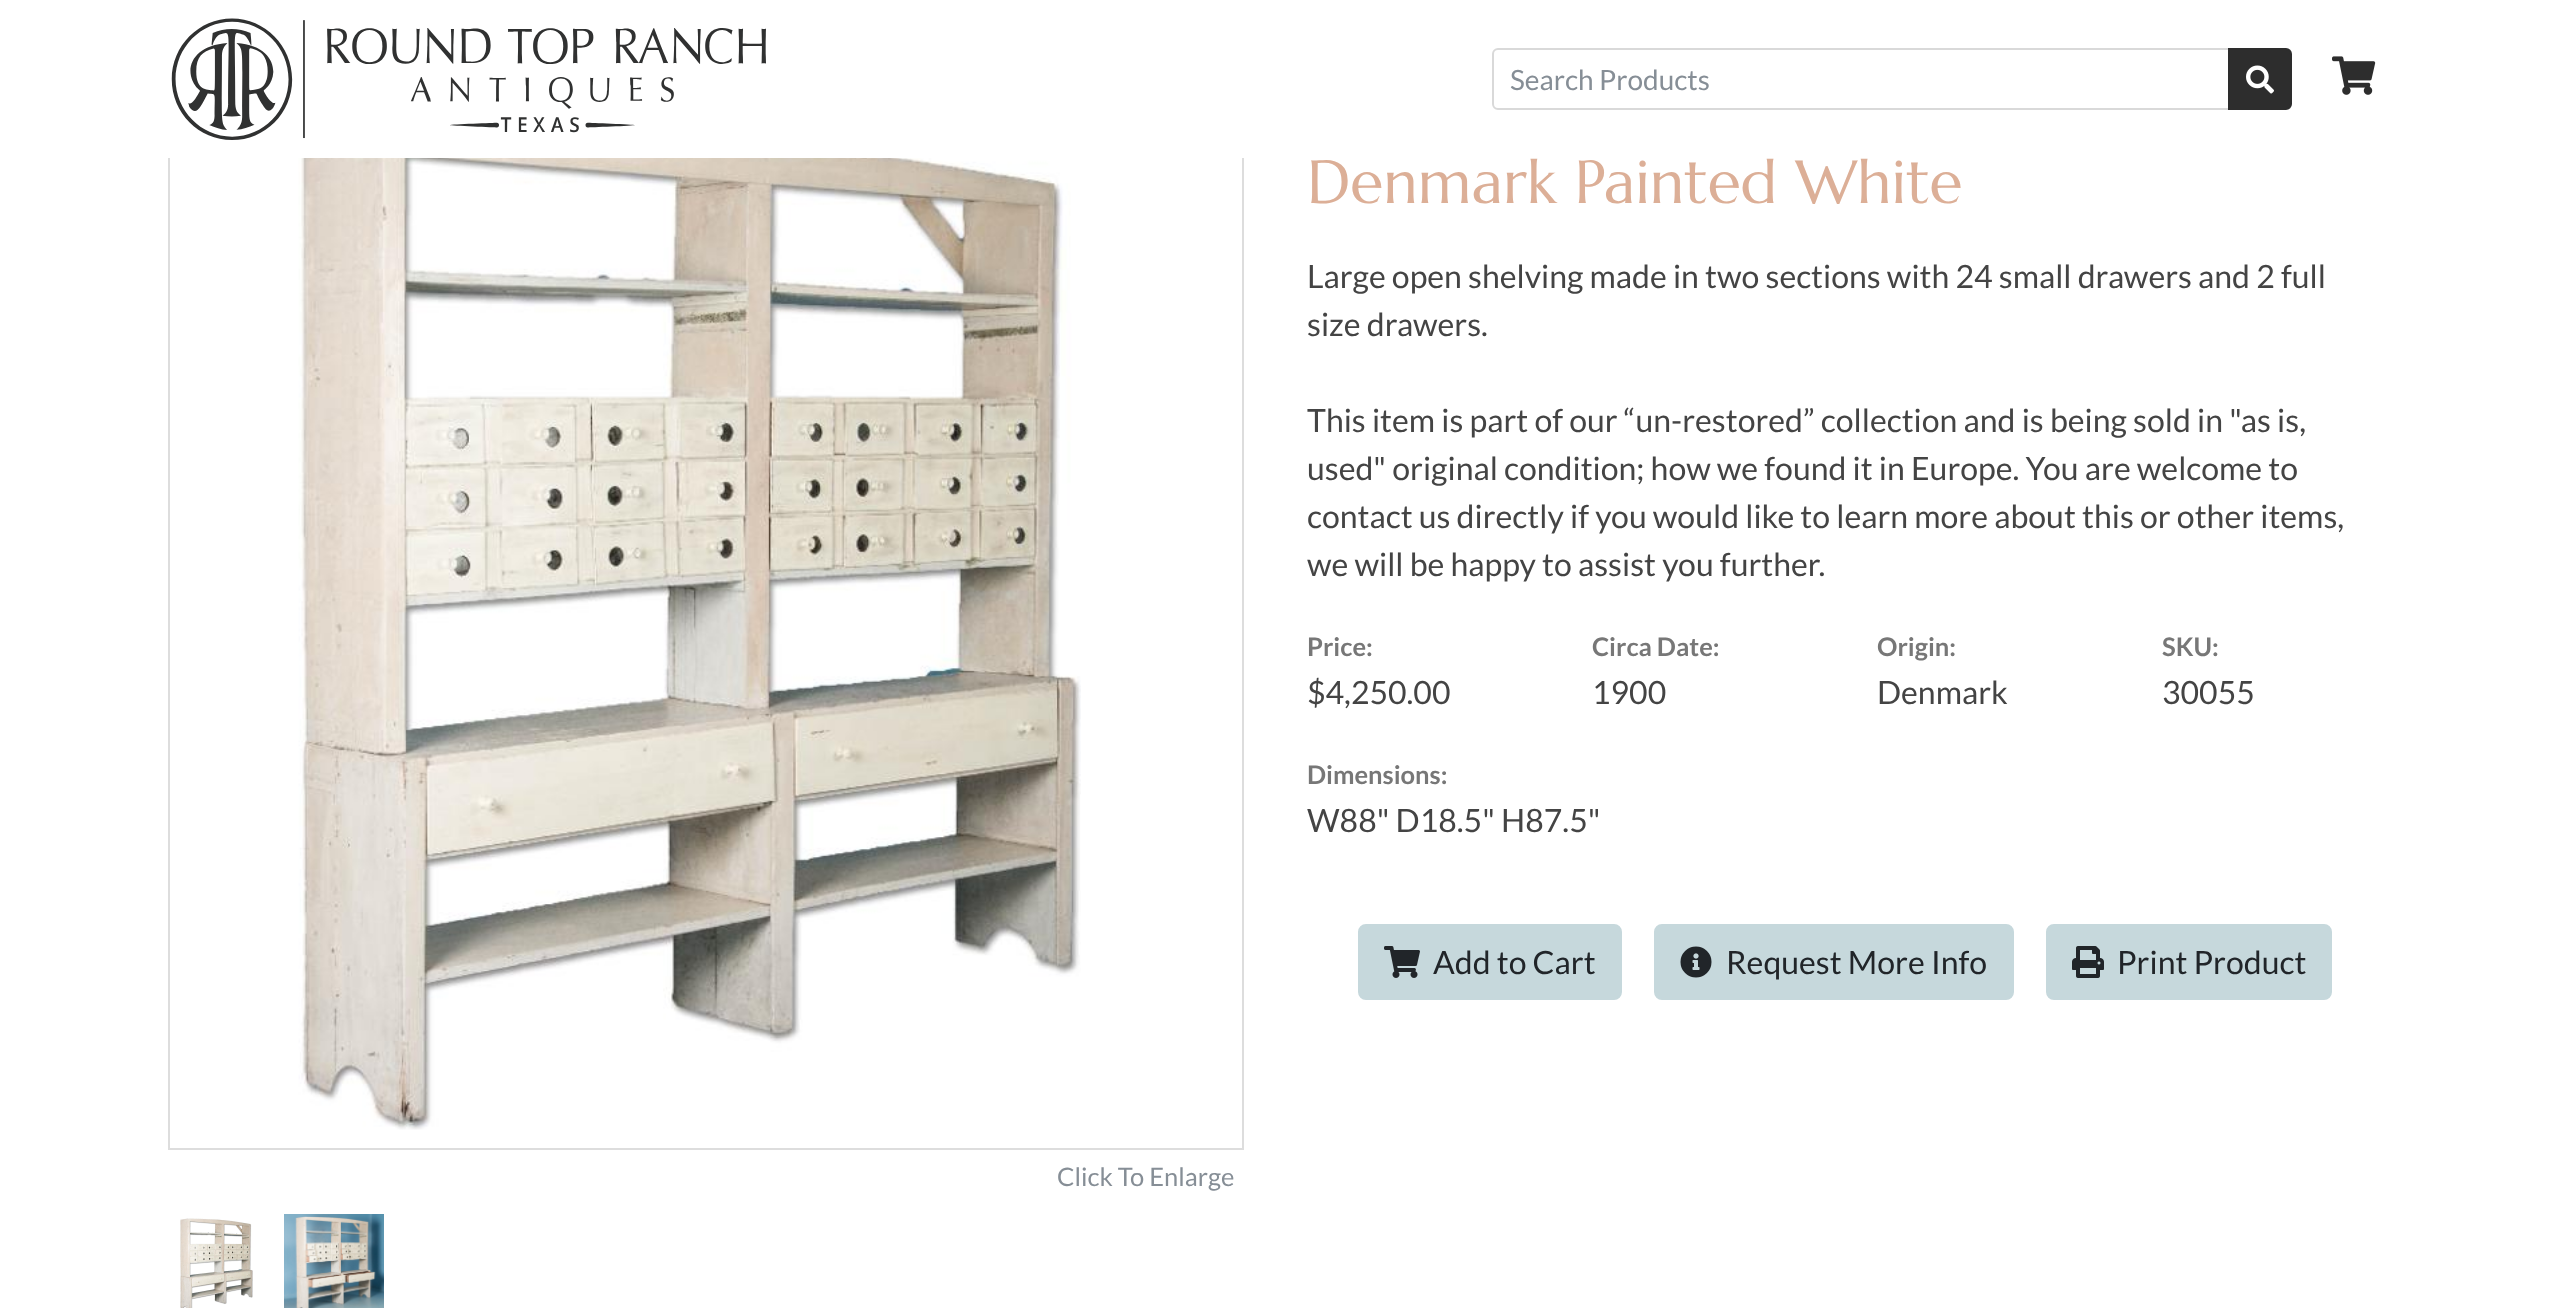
(async () => {
    const canvas = document.querySelector("canvas");
    canvas.width = 2550;
    canvas.height = 1308;
    const context = canvas.getContext("2d");
    context.miterLimit = 4;
    context.fontKerning = "normal";
    function write(s, x, y, font, color) {
        context.font = font;
        context.fillStyle = color;
        context.fillText(s, x, y);
    }
    function block(x, y, w, h, color) {
        context.fillStyle = color;
        context.fillRect(x, y, w, h);
    }
    async function photo(src, x, y, w, h) {
        const img = new Image();
        img.src = src;
        await img.decode();
        context.drawImage(img, x, y, w, h);
    }

    block(0, 0, 2550, 1308, "rgb(255, 255, 255)");
    context.strokeStyle = "rgb(221, 221, 221)";
    context.lineWidth = 2;
    context.strokeRect(169, 75, 1074, 1074);
    block(168, 74, 1076, 84, "rgb(255, 255, 255)");
    await photo("media/1.png", 171, 18, 595, 122);
    context.beginPath();
    context.roundRect(1493, 49, 736, 60, [5, 0, 0, 5]);
    context.strokeStyle = "rgb(217, 217, 217)";
    context.stroke();
    write("Search Products", 1510, 90, "28px Lato", "rgb(134, 142, 150)");
    context.fillStyle = "rgb(45, 45, 45)";
    context.beginPath();
    context.roundRect(2229, 49, 62, 60, [0, 5, 5, 0]);
    context.fill();
    context.strokeStyle = "rgb(45, 45, 45)";
    context.stroke();
    await photo("media/2.png", 2246, 65, 28, 29);
    await photo("media/3.png", 2332, 56, 44, 39);
    write("Denmark Painted White", 1307, 203, "60.75px Marcellus", "rgb(220, 175, 151)");
    write("Large open shelving made in two sections with 24 small drawers and 2 full", 1307, 288, "32px Lato", "rgb(68, 68, 68)");
    write("size drawers.", 1307, 336, "32px Lato", "rgb(68, 68, 68)");
    write("This item is part of our “un-restored” collection and is being sold in \"as is,", 1307, 432, "32px Lato", "rgb(68, 68, 68)");
    write("used\" original condition; how we found it in Europe. You are welcome to", 1307, 480, "32px Lato", "rgb(68, 68, 68)");
    write("contact us directly if you would like to learn more about this or other items,", 1307, 528, "32px Lato", "rgb(68, 68, 68)");
    write("we will be happy to assist you further.", 1307, 576, "32px Lato", "rgb(68, 68, 68)");
    write("Price:", 1307, 656, "bold 25.5px Lato", "rgb(119, 119, 119)");
    write("$4,250.00", 1307, 704, "32px Lato", "rgb(68, 68, 68)");
    write("Circa Date:", 1592, 656, "bold 25.5px Lato", "rgb(119, 119, 119)");
    write("1900", 1592, 704, "32px Lato", "rgb(68, 68, 68)");
    write("Origin:", 1877, 656, "bold 25.5px Lato", "rgb(119, 119, 119)");
    write("Denmark", 1877, 704, "32px Lato", "rgb(68, 68, 68)");
    write("SKU:", 2162, 656, "bold 25.5px Lato", "rgb(119, 119, 119)");
    write("30055", 2162, 704, "32px Lato", "rgb(68, 68, 68)");
    write("Dimensions:", 1307, 784, "bold 25.5px Lato", "rgb(119, 119, 119)");
    write("W88\" D18.5\" H87.5\"", 1307, 832, "32px Lato", "rgb(68, 68, 68)");
    context.fillStyle = "rgb(198, 216, 220)";
    context.beginPath();
    context.roundRect(1359, 925, 262, 74, 7);
    context.fill();
    context.strokeStyle = "rgb(198, 216, 220)";
    context.stroke();
    await photo("media/4.png", 1384, 946, 36, 32);
    write("Add to Cart", 1433, 974, "32px Lato", "rgb(33, 37, 41)");
    context.fillStyle = "rgb(198, 216, 220)";
    context.beginPath();
    context.roundRect(1655, 925, 358, 74, 7);
    context.fill();
    context.stroke();
    await photo("media/5.png", 1680, 946, 32, 32);
    write("Request More Info", 1726, 974, "32px Lato", "rgb(33, 37, 41)");
    context.fillStyle = "rgb(198, 216, 220)";
    context.beginPath();
    context.roundRect(2047, 925, 284, 74, 7);
    context.fill();
    context.stroke();
    await photo("media/6.png", 2072, 946, 32, 32);
    write("Print Product", 2117, 974, "32px Lato", "rgb(33, 37, 41)");
    await photo("media/7.png", 298, 158, 783, 972);
    write("Click To Enlarge", 1057, 1186, "25.5px Lato", "rgb(134, 142, 150)");
    await photo("media/8.png", 180, 1218, 73, 90);
    await photo("media/9.png", 284, 1214, 100, 94);
})();
